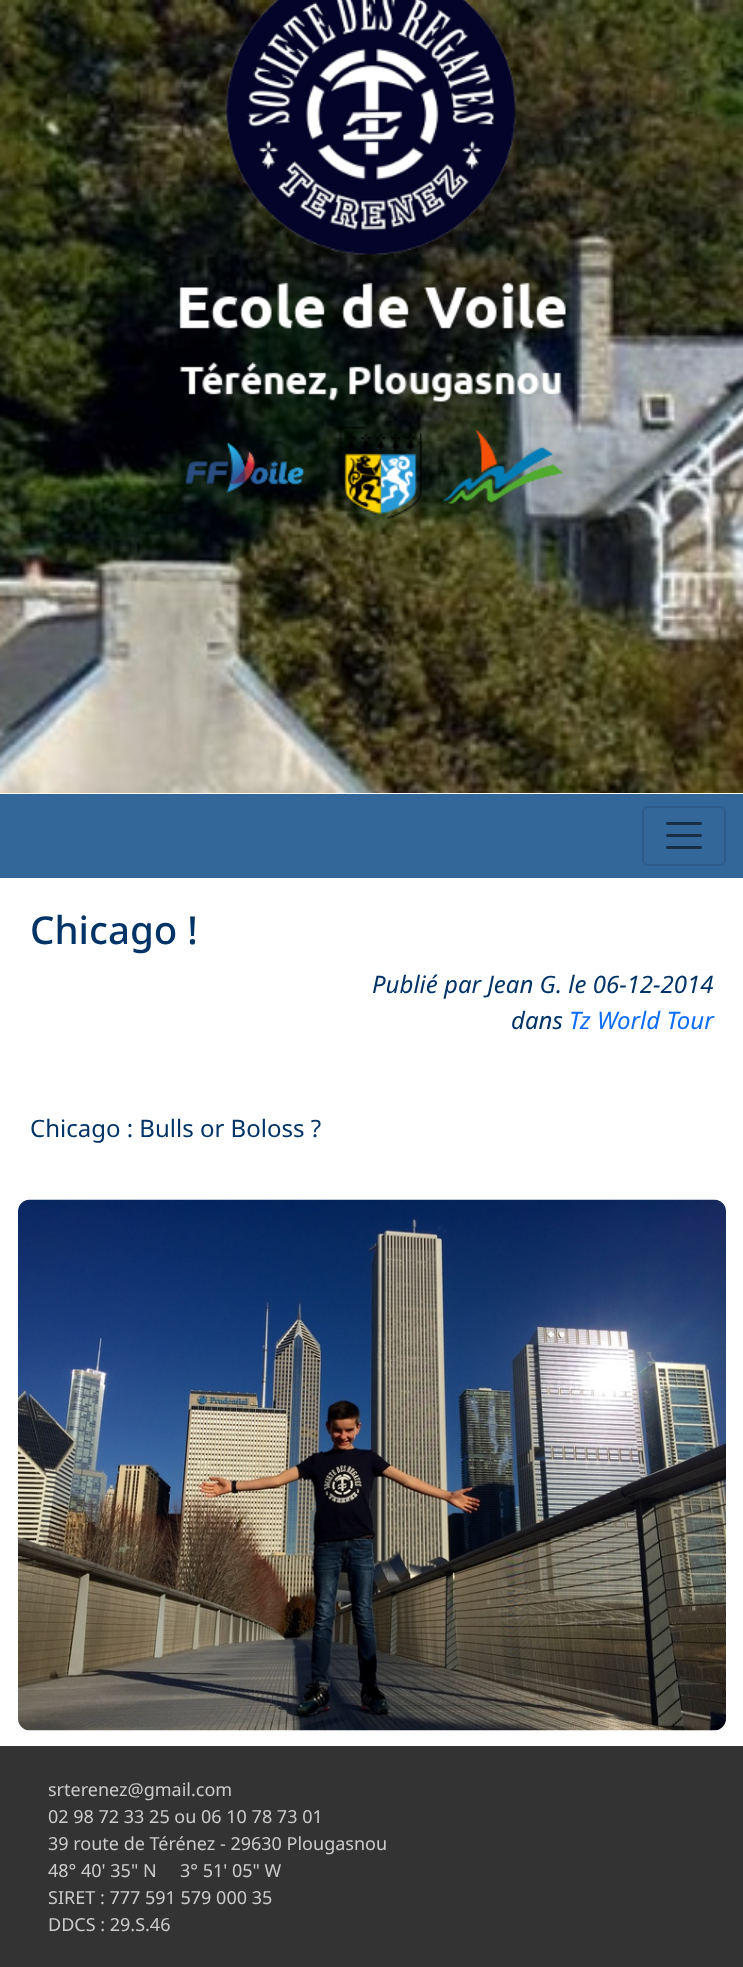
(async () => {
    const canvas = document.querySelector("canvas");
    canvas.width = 743;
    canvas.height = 1967;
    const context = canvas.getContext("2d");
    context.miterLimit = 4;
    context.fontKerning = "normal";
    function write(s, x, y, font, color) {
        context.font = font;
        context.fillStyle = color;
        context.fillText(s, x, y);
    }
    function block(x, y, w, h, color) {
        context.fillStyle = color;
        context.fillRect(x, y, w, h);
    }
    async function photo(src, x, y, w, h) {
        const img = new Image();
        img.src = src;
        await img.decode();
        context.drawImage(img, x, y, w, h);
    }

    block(0, 0, 743, 1967, "rgb(255, 255, 255)");
    await photo("media/1.png", 0, 0, 743, 793);
    await photo("media/2.png", 179, 0, 387, 519);
    block(0, 794, 743, 84, "rgb(51, 102, 153)");
    context.beginPath();
    context.roundRect(643, 807, 82, 58, 5);
    context.strokeStyle = "rgb(46, 92, 138)";
    context.lineWidth = 2;
    context.stroke();
    context.beginPath();
    context.moveTo(667.5, 823.5);
    context.lineTo(700.5, 823.5);
    context.moveTo(667.5, 835.5);
    context.lineTo(700.5, 835.5);
    context.moveTo(667.5, 847.5);
    context.lineTo(700.5, 847.5);
    context.strokeStyle = "rgb(23, 46, 69)";
    context.lineWidth = 3;
    context.lineCap = "round";
    context.stroke();
    write("Chicago !", 30, 944, "500 38.5px Noto Sans", "rgb(0, 51, 102)");
    write("Publié par Jean G. le 06-12-2014", 372, 993, "italic 24px Noto Sans", "rgb(0, 51, 102)");
    write("dans", 511, 1029, "italic 24px Noto Sans", "rgb(0, 51, 102)");
    write("Tz World Tour", 569, 1029, "italic 24px Noto Sans", "rgb(13, 110, 253)");
    write("Chicago : Bulls or Boloss ?", 30, 1137, "24px Noto Sans", "rgb(0, 51, 102)");
    await photo("media/3.png", 18, 1199, 708, 532);
    block(0, 1746, 743, 221, "rgb(51, 51, 51)");
    write("srterenez@gmail.com", 48, 1796, "18px Noto Sans", "rgb(204, 204, 204)");
    write("02 98 72 33 25 ou 06 10 78 73 01", 48, 1823, "18px Noto Sans", "rgb(204, 204, 204)");
    write("39 route de Térénez - 29630 Plougasnou", 48, 1850, "18px Noto Sans", "rgb(204, 204, 204)");
    write("48° 40' 35\" N     3° 51' 05\" W", 48, 1877, "18px Noto Sans", "rgb(204, 204, 204)");
    write("SIRET : 777 591 579 000 35", 48, 1904, "18px Noto Sans", "rgb(204, 204, 204)");
    write("DDCS : 29.S.46", 48, 1931, "18px Noto Sans", "rgb(204, 204, 204)");
})();
